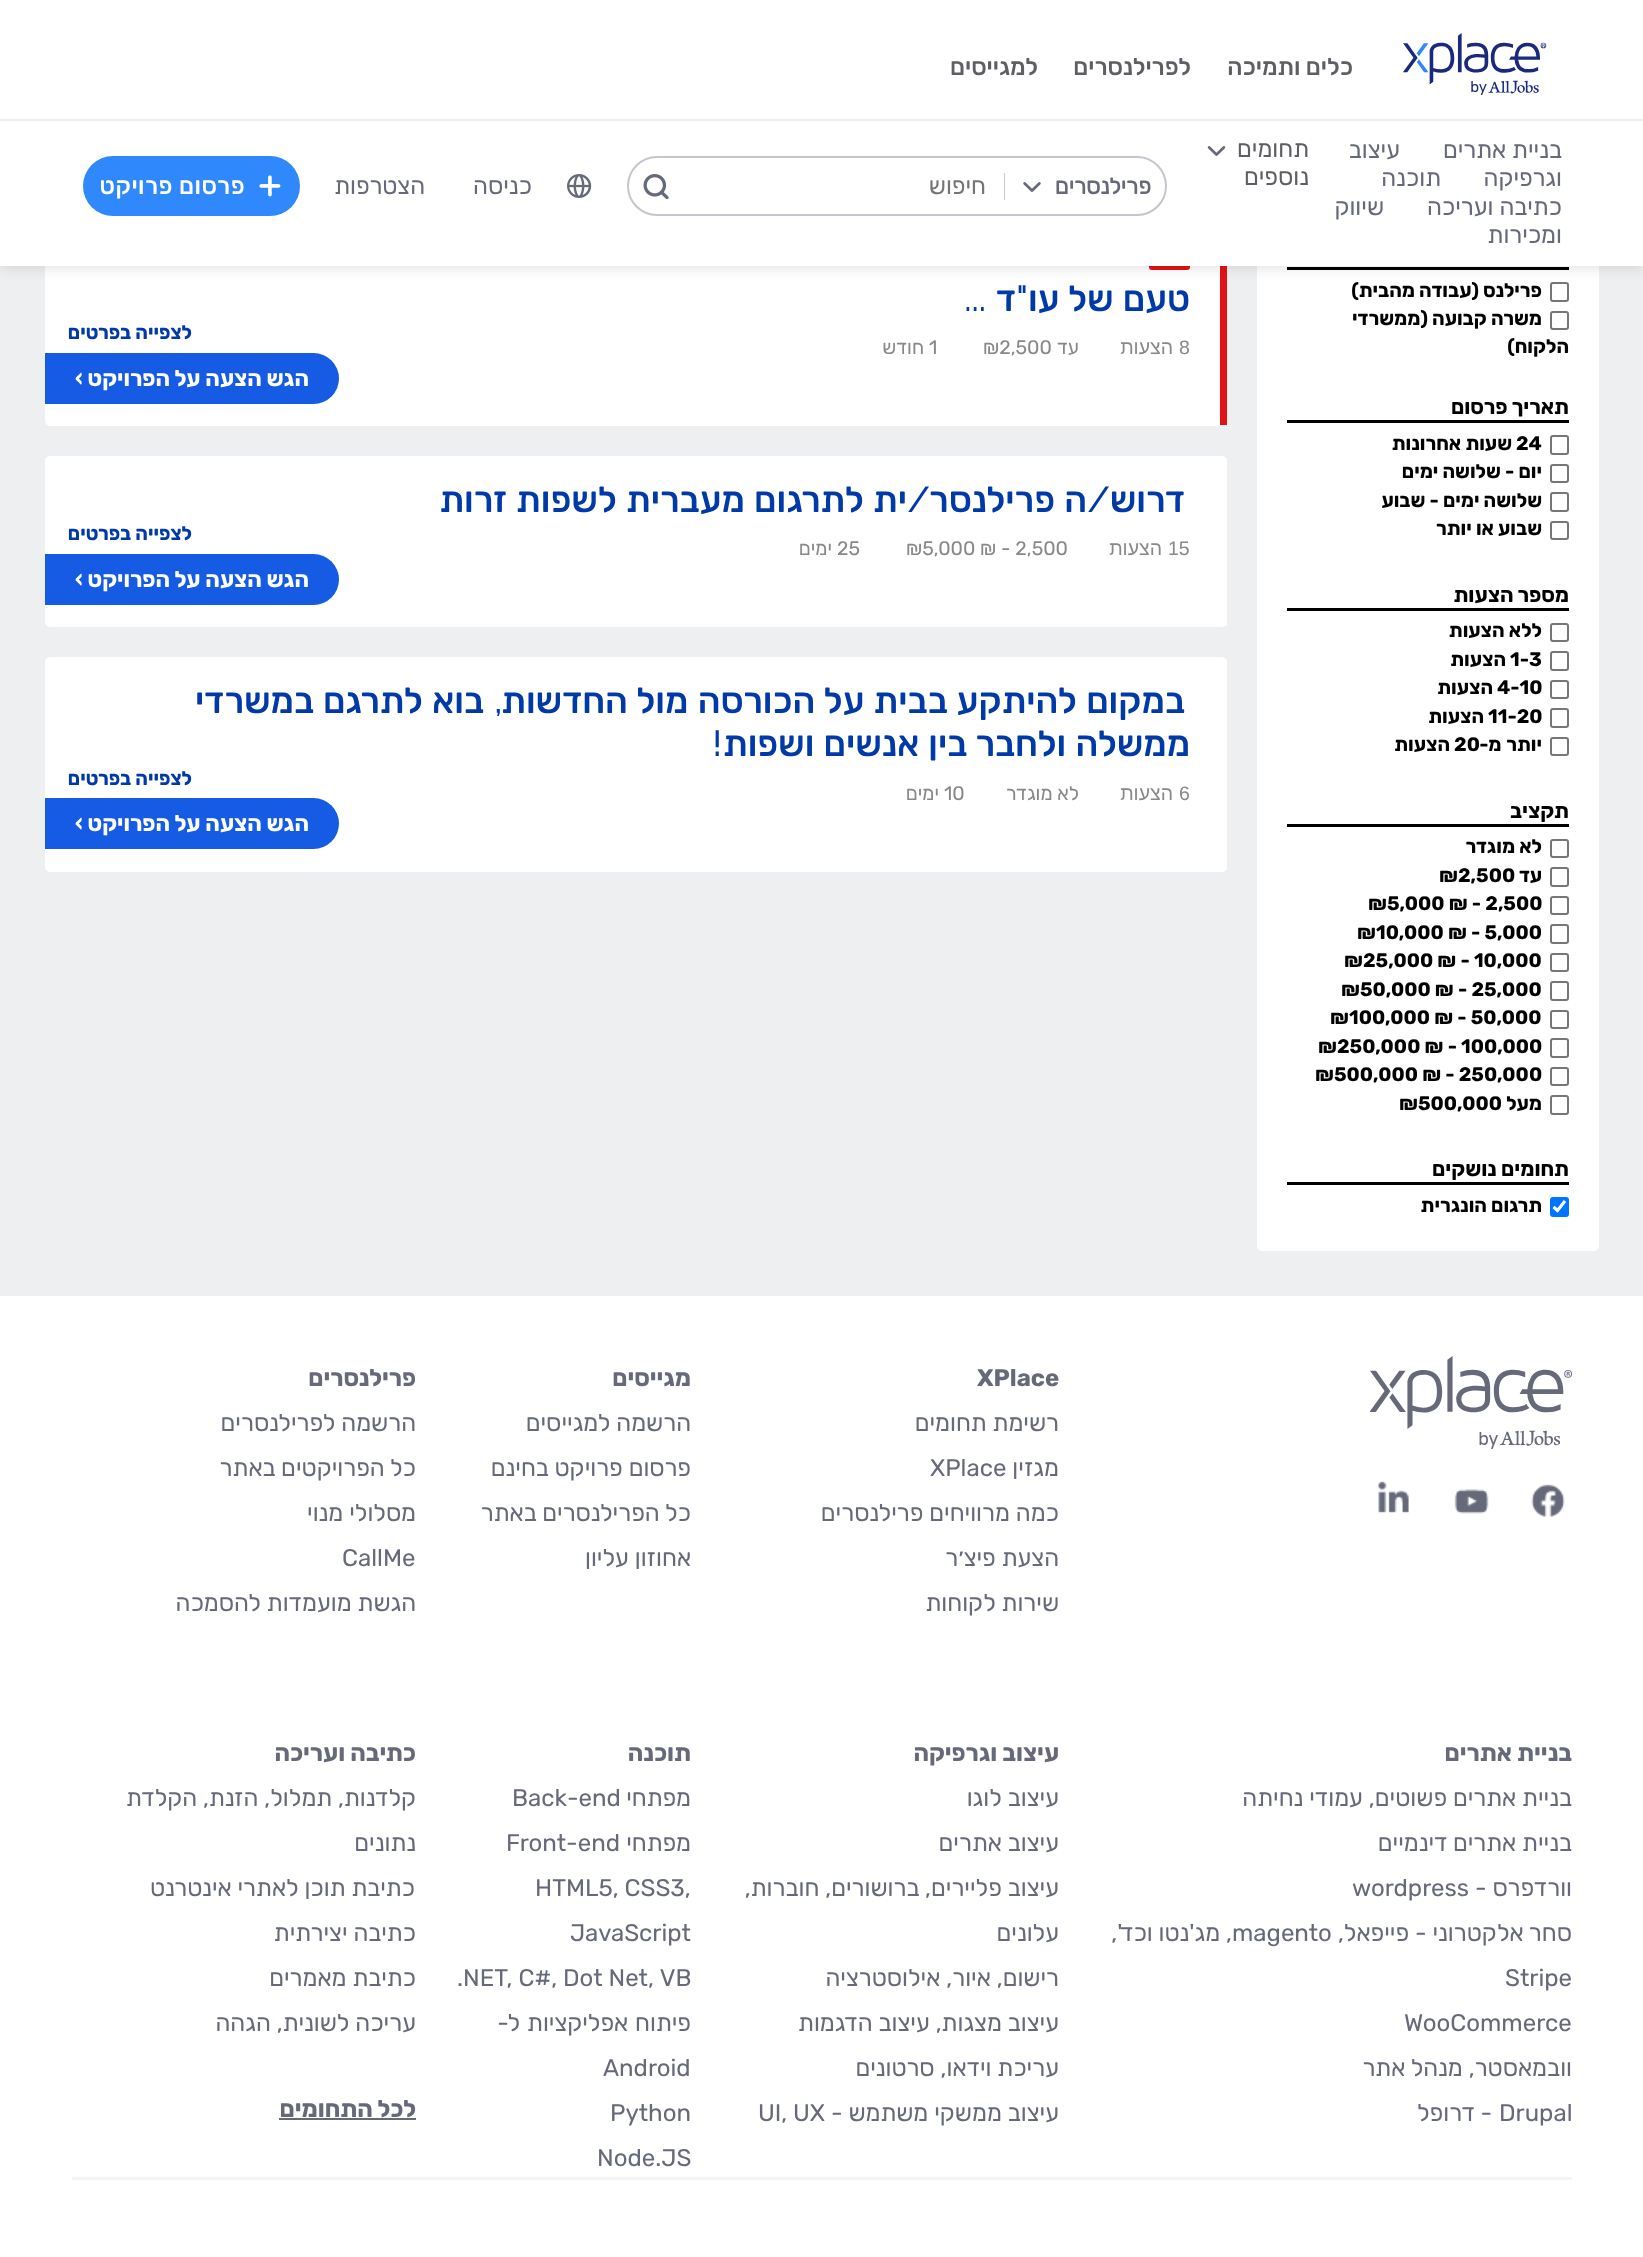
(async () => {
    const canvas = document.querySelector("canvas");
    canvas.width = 1643;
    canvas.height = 2257;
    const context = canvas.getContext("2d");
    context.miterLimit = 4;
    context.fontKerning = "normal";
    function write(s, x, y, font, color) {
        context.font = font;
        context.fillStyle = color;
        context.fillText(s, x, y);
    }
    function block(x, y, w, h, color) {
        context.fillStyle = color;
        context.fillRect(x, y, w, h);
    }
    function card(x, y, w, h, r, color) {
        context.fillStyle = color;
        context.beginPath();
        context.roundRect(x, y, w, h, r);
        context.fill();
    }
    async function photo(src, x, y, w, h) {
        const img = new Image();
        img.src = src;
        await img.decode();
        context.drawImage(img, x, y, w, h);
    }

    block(0, 0, 1643, 2257, "rgb(255, 255, 255)");
    block(0, 266, 1643, 1030, "rgb(237, 239, 240)");
    card(1257, 212, 342, 1039, 5, "rgb(255, 255, 255)");
    block(1287, 267, 282, 3, "rgb(0, 0, 0)");
    context.beginPath();
    context.roundRect(1551, 283, 17, 18, 2);
    context.strokeStyle = "rgb(118, 118, 118)";
    context.lineWidth = 2;
    context.stroke();
    card(45, 212, 1182, 214, 5, "rgb(255, 255, 255)");
    block(1220, 266, 7, 159, "rgb(228, 18, 22)");
    card(1149, 242, 41, 28, 3, "rgb(228, 18, 22)");
    context.fillStyle = "rgba(0, 0, 0, 0.15)";
    context.filter = "blur(7.5px)";
    context.beginPath();
    context.rect(0, 0, 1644, 266);
    context.fill();
    context.filter = "none";
    block(0, 0, 1643, 266, "rgb(255, 255, 255)");
    await photo("media/1.png", 1403, 33, 144, 62);
    context.direction = "rtl";
    write("כלים ותמיכה", 1353, 75, "500 24px 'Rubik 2'", "rgb(94, 95, 100)");
    write("לפרילנסרים", 1191, 75, "500 24px 'Rubik 2'", "rgb(94, 95, 100)");
    write("למגייסים", 1038, 75, "500 24px 'Rubik 2'", "rgb(94, 95, 100)");
    block(0, 119, 1643, 2, "rgb(235, 236, 238)");
    write("בניית אתרים", 1562, 158, "24px 'Rubik 2'", "rgb(102, 105, 122)");
    write("עיצוב", 1400, 158, "24px 'Rubik 2'", "rgb(102, 105, 122)");
    write("וגרפיקה", 1562, 186, "24px 'Rubik 2'", "rgb(102, 105, 122)");
    write("תוכנה", 1441, 186, "24px 'Rubik 2'", "rgb(102, 105, 122)");
    write("כתיבה ועריכה", 1562, 215, "24px 'Rubik 2'", "rgb(102, 105, 122)");
    write("שיווק", 1384, 215, "24px 'Rubik 2'", "rgb(102, 105, 122)");
    write("ומכירות", 1562, 243, "24px 'Rubik 2'", "rgb(102, 105, 122)");
    write("תחומים", 1309, 157, "24px 'Rubik 2'", "rgb(94, 95, 100)");
    write("נוספים", 1309, 185, "24px 'Rubik 2'", "rgb(94, 95, 100)");
    await photo("media/2.png", 1207, 146, 19, 10);
    context.beginPath();
    context.roundRect(628, 157, 538, 58, 29);
    context.strokeStyle = "rgb(197, 198, 205)";
    context.stroke();
    write("פרילנסרים", 1151, 194, "bold 22.5px 'Rubik 2'", "rgb(102, 105, 122)");
    await photo("media/3.png", 1023, 182, 18, 10);
    block(1004, 173, 1, 27, "rgb(203, 204, 210)");
    write("חיפוש", 986, 194, "24px 'Rubik 2'", "rgb(117, 117, 117)");
    await photo("media/4.png", 643, 174, 26, 26);
    await photo("media/5.png", 567, 174, 25, 24);
    write("כניסה", 532, 194, "24px Rubik", "rgb(102, 105, 122)");
    write("הצטרפות", 425, 194, "24px 'Rubik 2'", "rgb(102, 105, 122)");
    card(83, 156, 217, 60, 30, "rgb(47, 137, 252)");
    await photo("media/6.png", 259, 175, 22, 22);
    context.letterSpacing = "0.5px";
    write("פרסום פרויקט", 245, 194, "500 24px 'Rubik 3'", "rgb(255, 255, 255)");
    context.letterSpacing = "0px";
    write("פרילנס (עבודה מהבית)", 1542, 297, "bold 19.5px Rubik", "rgb(0, 0, 0)");
    context.beginPath();
    context.roundRect(1551, 312, 17, 17, 2);
    context.strokeStyle = "rgb(118, 118, 118)";
    context.stroke();
    write("משרה קבועה (ממשרדי", 1542, 325, "bold 19.5px Rubik", "rgb(0, 0, 0)");
    write("הלקוח)", 1569, 353, "bold 19.5px Rubik", "rgb(0, 0, 0)");
    block(1287, 420, 282, 3, "rgb(0, 0, 0)");
    write("תאריך פרסום", 1569, 414, "bold 21px Rubik", "rgb(0, 0, 0)");
    context.beginPath();
    context.roundRect(1551, 436, 17, 18, 2);
    context.stroke();
    context.direction = "ltr";
    write("24", 1516, 450, "bold 19.5px Rubik", "rgb(0, 0, 0)");
    context.direction = "rtl";
    write("שעות אחרונות", 1512, 450, "bold 19.5px Rubik", "rgb(0, 0, 0)");
    context.beginPath();
    context.roundRect(1551, 465, 17, 17, 2);
    context.stroke();
    write("יום - שלושה ימים", 1542, 478, "bold 19.5px Rubik", "rgb(0, 0, 0)");
    context.beginPath();
    context.roundRect(1551, 493, 17, 18, 2);
    context.stroke();
    write("שלושה ימים - שבוע", 1542, 507, "bold 19.5px Rubik", "rgb(0, 0, 0)");
    context.beginPath();
    context.roundRect(1551, 522, 17, 17, 2);
    context.stroke();
    write("שבוע או יותר", 1542, 535, "bold 19.5px Rubik", "rgb(0, 0, 0)");
    block(1287, 608, 282, 3, "rgb(0, 0, 0)");
    write("מספר הצעות", 1569, 602, "bold 21px Rubik", "rgb(0, 0, 0)");
    context.beginPath();
    context.roundRect(1551, 624, 17, 17, 2);
    context.stroke();
    write("ללא הצעות", 1542, 637, "bold 19.5px Rubik", "rgb(0, 0, 0)");
    context.beginPath();
    context.roundRect(1551, 652, 17, 18, 2);
    context.stroke();
    context.direction = "ltr";
    write("1-3", 1510, 666, "bold 19.5px Rubik", "rgb(0, 0, 0)");
    context.direction = "rtl";
    write("הצעות", 1506, 666, "bold 19.5px Rubik", "rgb(0, 0, 0)");
    context.beginPath();
    context.roundRect(1551, 681, 17, 17, 2);
    context.stroke();
    context.direction = "ltr";
    write("4-10", 1497, 694, "bold 19.5px Rubik", "rgb(0, 0, 0)");
    context.direction = "rtl";
    write("הצעות", 1493, 694, "bold 19.5px Rubik", "rgb(0, 0, 0)");
    context.beginPath();
    context.roundRect(1551, 709, 17, 18, 2);
    context.stroke();
    context.direction = "ltr";
    write("11-20", 1488, 723, "bold 19.5px Rubik", "rgb(0, 0, 0)");
    context.direction = "rtl";
    write("הצעות", 1484, 723, "bold 19.5px Rubik", "rgb(0, 0, 0)");
    context.beginPath();
    context.roundRect(1551, 738, 17, 17, 2);
    context.stroke();
    context.wordSpacing = "1px";
    write("יותר מ-", 1542, 751, "bold 19.5px Rubik", "rgb(0, 0, 0)");
    context.wordSpacing = "0px";
    context.direction = "ltr";
    write("20", 1454, 751, "bold 19.5px Rubik", "rgb(0, 0, 0)");
    context.direction = "rtl";
    write("הצעות", 1450, 751, "bold 19.5px Rubik", "rgb(0, 0, 0)");
    block(1287, 824, 282, 3, "rgb(0, 0, 0)");
    write("תקציב", 1569, 818, "bold 21px Rubik", "rgb(0, 0, 0)");
    context.beginPath();
    context.roundRect(1551, 840, 17, 17, 2);
    context.stroke();
    write("לא מוגדר", 1542, 853, "bold 19.5px Rubik", "rgb(0, 0, 0)");
    context.beginPath();
    context.roundRect(1551, 868, 17, 18, 2);
    context.stroke();
    write("עד", 1542, 882, "bold 19.5px Rubik", "rgb(0, 0, 0)");
    context.direction = "ltr";
    write("₪2,500", 1439, 882, "bold 19.5px Rubik", "rgb(0, 0, 0)");
    context.beginPath();
    context.roundRect(1551, 897, 17, 17, 2);
    context.stroke();
    write("₪5,000 ₪ - 2,500", 1368, 910, "bold 19.5px Rubik", "rgb(0, 0, 0)");
    context.beginPath();
    context.roundRect(1551, 925, 17, 18, 2);
    context.stroke();
    write("₪10,000 ₪ - 5,000", 1357, 939, "bold 19.5px Rubik", "rgb(0, 0, 0)");
    context.beginPath();
    context.roundRect(1551, 954, 17, 17, 2);
    context.stroke();
    write("₪25,000 ₪ - 10,000", 1344, 967, "bold 19.5px Rubik", "rgb(0, 0, 0)");
    context.beginPath();
    context.roundRect(1551, 982, 17, 18, 2);
    context.stroke();
    write("₪50,000 ₪ - 25,000", 1341, 996, "bold 19.5px Rubik", "rgb(0, 0, 0)");
    context.beginPath();
    context.roundRect(1551, 1011, 17, 17, 2);
    context.stroke();
    write("₪100,000 ₪ - 50,000", 1330, 1024, "bold 19.5px Rubik", "rgb(0, 0, 0)");
    context.beginPath();
    context.roundRect(1551, 1039, 17, 18, 2);
    context.stroke();
    write("₪250,000 ₪ - 100,000", 1318, 1053, "bold 19.5px Rubik", "rgb(0, 0, 0)");
    context.beginPath();
    context.roundRect(1551, 1068, 17, 17, 2);
    context.stroke();
    write("₪500,000 ₪ - 250,000", 1315, 1081, "bold 19.5px Rubik", "rgb(0, 0, 0)");
    context.beginPath();
    context.roundRect(1551, 1096, 17, 18, 2);
    context.stroke();
    context.direction = "rtl";
    write("מעל", 1542, 1110, "bold 19.5px Rubik", "rgb(0, 0, 0)");
    context.direction = "ltr";
    write("₪500,000", 1399, 1110, "bold 19.5px Rubik", "rgb(0, 0, 0)");
    block(1287, 1182, 282, 3, "rgb(0, 0, 0)");
    context.direction = "rtl";
    write("תחומים נושקים", 1569, 1176, "bold 21px Rubik", "rgb(0, 0, 0)");
    card(1550, 1197, 19, 20, 3, "rgb(0, 117, 255)");
    context.beginPath();
    context.moveTo(1553.5, 1207);
    context.lineTo(1557.5, 1210.5);
    context.lineTo(1565, 1201);
    context.strokeStyle = "rgb(255, 255, 255)";
    context.lineWidth = 3.1;
    context.stroke();
    write("תרגום הונגרית", 1542, 1212, "bold 19.5px Rubik", "rgb(0, 0, 0)");
    context.wordSpacing = "1px";
    write("טעם של עו", 1190, 311, "500 36px Rubik", "rgb(0, 57, 168)");
    context.wordSpacing = "0px";
    write("\"", 1028, 311, "500 36px Raleway", "rgb(0, 57, 168)");
    write("ד", 1016, 311, "500 36px Rubik", "rgb(0, 57, 168)");
    write("...", 986, 311, "500 36px Raleway", "rgb(0, 57, 168)");
    context.direction = "ltr";
    write("8", 1179, 354, "19.5px Liberation Sans", "rgb(136, 136, 136)");
    context.direction = "rtl";
    write("הצעות", 1173, 354, "19.5px Liberation Sans", "rgb(136, 136, 136)");
    write("עד", 1079, 354, "19.5px Rubik", "rgb(136, 136, 136)");
    context.direction = "ltr";
    write("₪2,500", 983, 354, "19.5px Rubik", "rgb(136, 136, 136)");
    write("1", 929, 354, "19.5px Rubik", "rgb(136, 136, 136)");
    context.direction = "rtl";
    write("חודש", 924, 354, "19.5px Rubik", "rgb(136, 136, 136)");
    write("לצפייה בפרטים", 192, 339, "bold 19.5px Rubik", "rgb(0, 57, 168)");
    context.fillStyle = "rgb(21, 91, 227)";
    context.beginPath();
    context.roundRect(45, 353, 294, 51, [0, 25.5, 25.5, 0]);
    context.fill();
    write("הגש הצעה על הפרויקט ›", 309, 386, "bold 22.5px Rubik", "rgb(255, 255, 255)");
    card(45, 456, 1182, 171, 5, "rgb(255, 255, 255)");
    block(1225, 459, 2, 167, "rgb(255, 255, 255)");
    write("דרוש", 1185, 512, "500 36px Rubik", "rgb(0, 57, 168)");
    write("/", 1110, 512, "500 36px Raleway", "rgb(0, 57, 168)");
    context.wordSpacing = "1px";
    write("ה פרילנסר", 1087, 512, "500 36px Rubik", "rgb(0, 57, 168)");
    context.wordSpacing = "0px";
    write("/", 930, 512, "500 36px Raleway", "rgb(0, 57, 168)");
    context.wordSpacing = "1px";
    write("ית לתרגום מעברית לשפות זרות", 907, 512, "500 36px Rubik", "rgb(0, 57, 168)");
    context.wordSpacing = "0px";
    context.direction = "ltr";
    write("15", 1168, 555, "19.5px Liberation Sans", "rgb(136, 136, 136)");
    context.direction = "rtl";
    write("הצעות", 1162, 555, "19.5px Liberation Sans", "rgb(136, 136, 136)");
    context.direction = "ltr";
    write("₪5,000 ₪ - 2,500", 906, 555, "19.5px Rubik", "rgb(136, 136, 136)");
    write("25", 837, 555, "19.5px Rubik", "rgb(136, 136, 136)");
    context.direction = "rtl";
    write("ימים", 832, 555, "19.5px Rubik", "rgb(136, 136, 136)");
    write("לצפייה בפרטים", 192, 540, "bold 19.5px Rubik", "rgb(0, 57, 168)");
    context.fillStyle = "rgb(21, 91, 227)";
    context.beginPath();
    context.roundRect(45, 554, 294, 51, [0, 25.5, 25.5, 0]);
    context.fill();
    write("הגש הצעה על הפרויקט ›", 309, 587, "bold 22.5px Rubik", "rgb(255, 255, 255)");
    card(45, 657, 1182, 215, 5, "rgb(255, 255, 255)");
    block(1226, 660, 1, 210, "rgb(255, 255, 255)");
    context.wordSpacing = "1px";
    write("במקום להיתקע בבית על הכורסה מול החדשות", 1185, 713, "500 36px Rubik", "rgb(0, 57, 168)");
    context.wordSpacing = "0px";
    write(",", 502, 713, "500 36px Raleway", "rgb(0, 57, 168)");
    context.wordSpacing = "1px";
    write("בוא לתרגם במשרדי", 484, 713, "500 36px Rubik", "rgb(0, 57, 168)");
    write("ממשלה ולחבר בין אנשים ושפות", 1190, 756, "500 36px Rubik", "rgb(0, 57, 168)");
    context.wordSpacing = "0px";
    write("!", 722, 756, "500 36px Raleway", "rgb(0, 57, 168)");
    context.direction = "ltr";
    write("6", 1179, 800, "19.5px Liberation Sans", "rgb(136, 136, 136)");
    context.direction = "rtl";
    write("הצעות", 1173, 800, "19.5px Liberation Sans", "rgb(136, 136, 136)");
    write("לא מוגדר", 1079, 800, "19.5px Rubik", "rgb(136, 136, 136)");
    context.direction = "ltr";
    write("10", 944, 800, "19.5px Rubik", "rgb(136, 136, 136)");
    context.direction = "rtl";
    write("ימים", 939, 800, "19.5px Rubik", "rgb(136, 136, 136)");
    write("לצפייה בפרטים", 192, 785, "bold 19.5px Rubik", "rgb(0, 57, 168)");
    context.fillStyle = "rgb(21, 91, 227)";
    context.beginPath();
    context.roundRect(45, 798, 294, 51, [0, 25.5, 25.5, 0]);
    context.fill();
    write("הגש הצעה על הפרויקט ›", 309, 831, "bold 22.5px Rubik", "rgb(255, 255, 255)");
    await photo("media/7.png", 1370, 1356, 202, 93);
    await photo("media/8.png", 1531, 1484, 34, 33);
    await photo("media/9.png", 1454, 1489, 35, 25);
    await photo("media/10.png", 1378, 1481, 31, 32);
    write("בניית אתרים", 1572, 1761, "bold 24px Rubik", "rgb(102, 105, 122)");
    write("בניית אתרים פשוטים, עמודי נחיתה", 1572, 1806, "24px Rubik", "rgb(102, 105, 122)");
    write("בניית אתרים דינמיים", 1572, 1851, "24px Rubik", "rgb(102, 105, 122)");
    write("וורדפרס -", 1572, 1896, "24px Rubik", "rgb(102, 105, 122)");
    context.direction = "ltr";
    write("wordpress", 1352, 1896, "24px Rubik", "rgb(102, 105, 122)");
    context.direction = "rtl";
    write("סחר אלקטרוני - פייפאל,", 1572, 1941, "24px Rubik", "rgb(102, 105, 122)");
    context.direction = "ltr";
    write("magento", 1232, 1941, "24px Rubik", "rgb(102, 105, 122)");
    context.direction = "rtl";
    write(", מג'נטו וכד',", 1232, 1941, "24px Rubik", "rgb(102, 105, 122)");
    context.direction = "ltr";
    write("Stripe", 1505, 1986, "24px Rubik", "rgb(102, 105, 122)");
    write("WooCommerce", 1404, 2031, "24px Rubik", "rgb(102, 105, 122)");
    context.direction = "rtl";
    write("וובמאסטר, מנהל אתר", 1572, 2076, "24px Rubik", "rgb(102, 105, 122)");
    context.direction = "ltr";
    write("Drupal", 1499, 2121, "24px Rubik", "rgb(102, 105, 122)");
    context.direction = "rtl";
    write("- דרופל", 1492, 2121, "24px Rubik", "rgb(102, 105, 122)");
    context.direction = "ltr";
    write("XPlace", 977, 1386, "bold 24px Rubik", "rgb(102, 105, 122)");
    context.direction = "rtl";
    write("רשימת תחומים", 1059, 1431, "24px Rubik", "rgb(102, 105, 122)");
    write("מגזין", 1059, 1476, "24px Rubik", "rgb(102, 105, 122)");
    context.direction = "ltr";
    write("XPlace", 930, 1476, "24px Rubik", "rgb(102, 105, 122)");
    context.direction = "rtl";
    write("כמה מרוויחים פרילנסרים", 1059, 1521, "24px Rubik", "rgb(102, 105, 122)");
    write("הצעת פיצ׳ר", 1059, 1566, "24px Rubik", "rgb(102, 105, 122)");
    write("שירות לקוחות", 1059, 1611, "24px Rubik", "rgb(102, 105, 122)");
    write("עיצוב וגרפיקה", 1059, 1761, "bold 24px Rubik", "rgb(102, 105, 122)");
    write("עיצוב לוגו", 1059, 1806, "24px Rubik", "rgb(102, 105, 122)");
    write("עיצוב אתרים", 1059, 1851, "24px Rubik", "rgb(102, 105, 122)");
    write("עיצוב פליירים, ברושורים, חוברות,", 1059, 1896, "24px Rubik", "rgb(102, 105, 122)");
    write("עלונים", 1059, 1941, "24px Rubik", "rgb(102, 105, 122)");
    write("רישום, איור, אילוסטרציה", 1059, 1986, "24px Rubik", "rgb(102, 105, 122)");
    write("עיצוב מצגות, עיצוב הדגמות", 1059, 2031, "24px Rubik", "rgb(102, 105, 122)");
    write("עריכת וידאו, סרטונים", 1059, 2076, "24px Rubik", "rgb(102, 105, 122)");
    write("עיצוב ממשקי משתמש -", 1059, 2121, "24px Rubik", "rgb(102, 105, 122)");
    context.direction = "ltr";
    write("UI, UX", 758, 2121, "24px Rubik", "rgb(102, 105, 122)");
    context.direction = "rtl";
    write("מגייסים", 691, 1386, "bold 24px Rubik", "rgb(102, 105, 122)");
    write("הרשמה למגייסים", 691, 1431, "24px Rubik", "rgb(102, 105, 122)");
    write("פרסום פרויקט בחינם", 691, 1476, "24px Rubik", "rgb(102, 105, 122)");
    write("כל הפרילנסרים באתר", 691, 1521, "24px Rubik", "rgb(102, 105, 122)");
    write("אחוזון עליון", 691, 1566, "24px Rubik", "rgb(102, 105, 122)");
    write("תוכנה", 691, 1761, "bold 24px Rubik", "rgb(102, 105, 122)");
    write("מפתחי", 691, 1806, "24px Rubik", "rgb(102, 105, 122)");
    context.direction = "ltr";
    write("Back-end", 512, 1806, "24px Rubik", "rgb(102, 105, 122)");
    context.direction = "rtl";
    write("מפתחי", 691, 1851, "24px Rubik", "rgb(102, 105, 122)");
    context.direction = "ltr";
    write("Front-end", 506, 1851, "24px Rubik", "rgb(102, 105, 122)");
    write("HTML5, CSS3,", 535, 1896, "24px Rubik", "rgb(102, 105, 122)");
    write("JavaScript", 570, 1941, "24px Rubik", "rgb(102, 105, 122)");
    write("NET, C#, Dot Net, VB", 463, 1986, "24px Rubik", "rgb(102, 105, 122)");
    write(".", 457, 1986, "24px Rubik", "rgb(102, 105, 122)");
    context.wordSpacing = "1px";
    context.direction = "rtl";
    write("פיתוח אפליקציות ל-", 691, 2031, "24px Rubik", "rgb(102, 105, 122)");
    context.wordSpacing = "0px";
    context.direction = "ltr";
    write("Android", 603, 2076, "24px Rubik", "rgb(102, 105, 122)");
    write("Python", 610, 2121, "24px Rubik", "rgb(102, 105, 122)");
    write("Node.JS", 597, 2166, "24px Rubik", "rgb(102, 105, 122)");
    context.direction = "rtl";
    write("פרילנסרים", 416, 1386, "bold 24px Rubik", "rgb(102, 105, 122)");
    write("הרשמה לפרילנסרים", 416, 1431, "24px Rubik", "rgb(102, 105, 122)");
    write("כל הפרויקטים באתר", 416, 1476, "24px Rubik", "rgb(102, 105, 122)");
    write("מסלולי מנוי", 416, 1521, "24px Rubik", "rgb(102, 105, 122)");
    context.direction = "ltr";
    write("CallMe", 342, 1566, "24px Rubik", "rgb(102, 105, 122)");
    context.direction = "rtl";
    write("הגשת מועמדות להסמכה", 416, 1611, "24px Rubik", "rgb(102, 105, 122)");
    write("כתיבה ועריכה", 416, 1761, "bold 24px Rubik", "rgb(102, 105, 122)");
    write("קלדנות, תמלול, הזנת, הקלדת", 416, 1806, "24px Rubik", "rgb(102, 105, 122)");
    write("נתונים", 416, 1851, "24px Rubik", "rgb(102, 105, 122)");
    write("כתיבת תוכן לאתרי אינטרנט", 415, 1896, "24px Rubik", "rgb(102, 105, 122)");
    write("כתיבה יצירתית", 416, 1941, "24px Rubik", "rgb(102, 105, 122)");
    write("כתיבת מאמרים", 416, 1986, "24px Rubik", "rgb(102, 105, 122)");
    write("עריכה לשונית, הגהה", 416, 2031, "24px Rubik", "rgb(102, 105, 122)");
    write("לכל התחומים", 416, 2117, "bold 24px Rubik", "rgb(102, 105, 122)");
    block(279, 2118, 137, 2, "rgb(102, 105, 122)");
    block(72, 2177, 1500, 3, "rgb(243, 244, 245)");
})();
